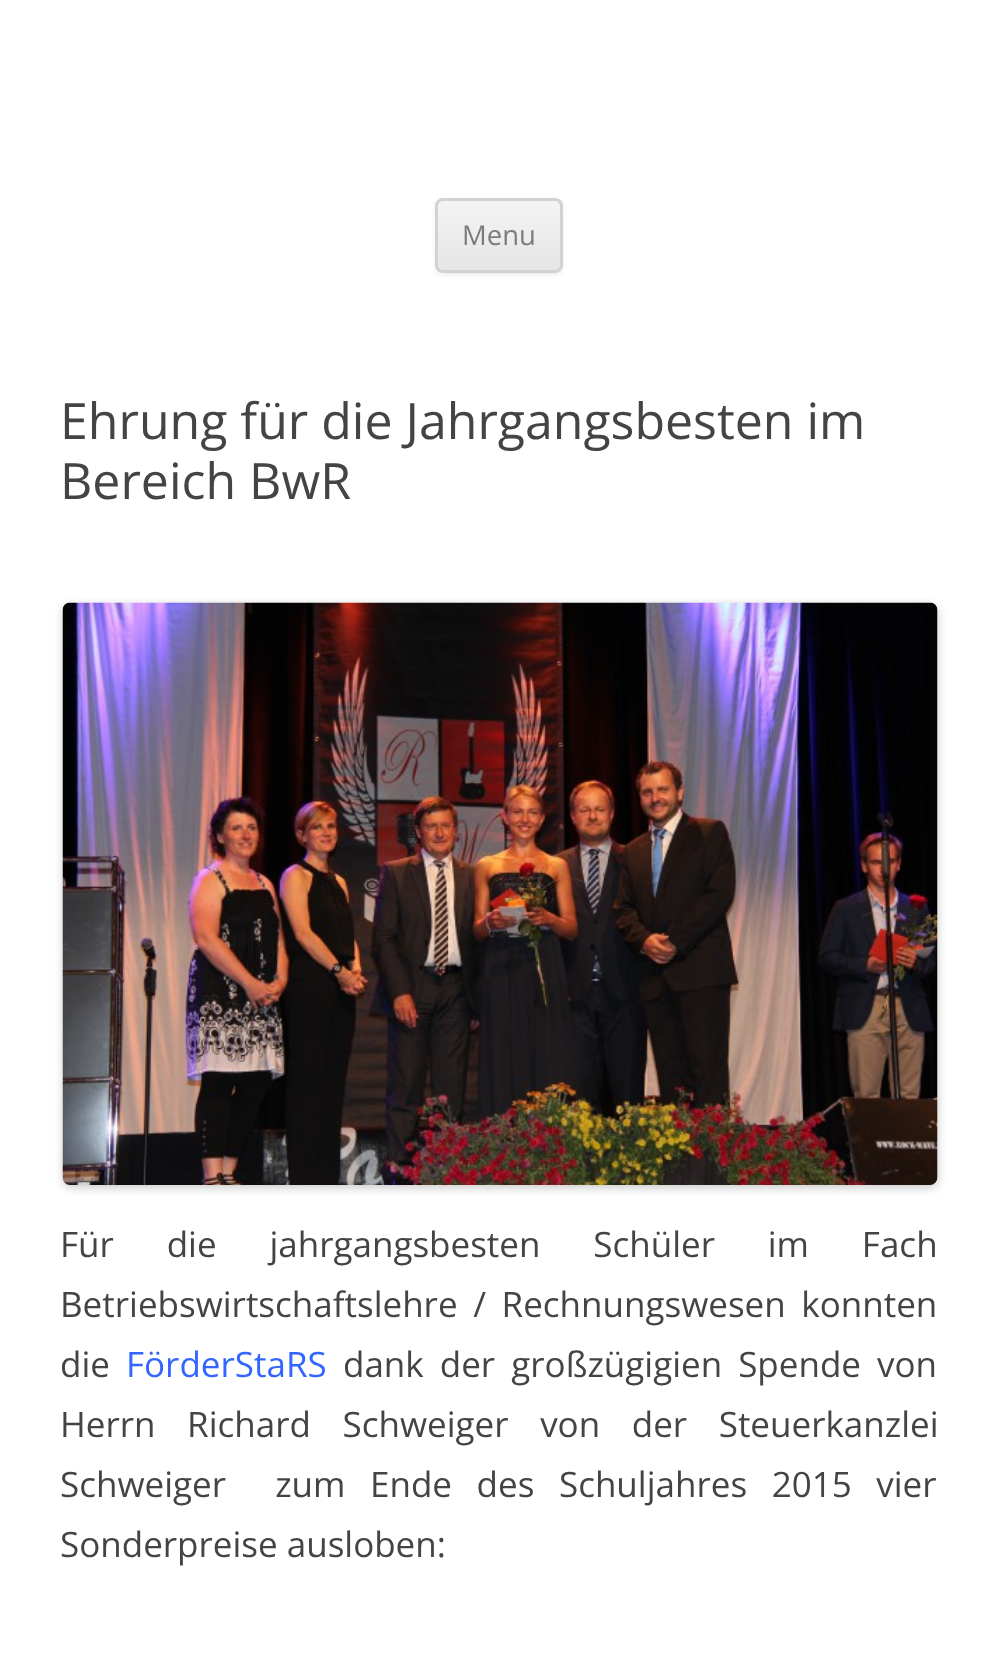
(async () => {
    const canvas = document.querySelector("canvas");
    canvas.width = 997;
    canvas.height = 1659;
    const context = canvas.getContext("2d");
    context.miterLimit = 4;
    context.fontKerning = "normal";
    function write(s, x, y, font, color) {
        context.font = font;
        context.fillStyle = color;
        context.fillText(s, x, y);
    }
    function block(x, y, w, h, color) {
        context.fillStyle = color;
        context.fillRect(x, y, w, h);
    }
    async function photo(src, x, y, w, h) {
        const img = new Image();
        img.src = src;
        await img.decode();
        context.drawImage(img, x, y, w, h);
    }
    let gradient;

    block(0, 0, 997, 1659, "rgb(255, 255, 255)");
    context.fillStyle = "rgba(64, 64, 64, 0.1)";
    context.filter = "blur(2.5px)";
    context.beginPath();
    context.roundRect(435, 200, 128, 75, 8);
    context.fill();
    context.filter = "none";
    context.save();
    context.beginPath();
    context.roundRect(435, 198, 128, 75, 8);
    context.clip();
    gradient = context.createLinearGradient(499, 200, 499, 270);
    gradient.addColorStop(0, "rgb(244, 244, 244)");
    gradient.addColorStop(1, "rgb(230, 230, 230)");
    context.fillStyle = gradient;
    context.fillRect(435, 200, 128, 70);
    context.restore();
    context.beginPath();
    context.roundRect(436.5, 199.5, 125, 72, 6.5);
    context.strokeStyle = "rgb(210, 210, 210)";
    context.lineWidth = 3;
    context.stroke();
    write("Menu", 462, 245, "27.5px Open Sans", "rgb(124, 124, 124)");
    write("Ehrung für die Jahrgangsbesten im", 60, 439, "50px Open Sans", "rgb(68, 68, 68)");
    write("Bereich BwR", 60, 499, "50px Open Sans", "rgb(68, 68, 68)");
    context.fillStyle = "rgba(0, 0, 0, 0.2)";
    context.filter = "blur(5px)";
    context.beginPath();
    context.roundRect(63, 605, 875, 583, 8);
    context.fill();
    context.filter = "none";
    await photo("media/1.png", 62, 602, 876, 583);
    context.wordSpacing = "43.75px";
    write("Für die jahrgangsbesten Schüler im Fach", 60, 1257, "35px Open Sans", "rgb(68, 68, 68)");
    context.wordSpacing = "6.5px";
    write("Betriebswirtschaftslehre / Rechnungswesen konnten", 60, 1317, "35px Open Sans", "rgb(68, 68, 68)");
    context.wordSpacing = "0px";
    write("die", 60, 1377, "35px Open Sans", "rgb(68, 68, 68)");
    write("FörderStaRS", 126, 1377, "35px Open Sans", "rgb(51, 102, 255)");
    context.wordSpacing = "7px";
    write("dank der großzügigien Spende von", 343, 1377, "35px Open Sans", "rgb(68, 68, 68)");
    context.wordSpacing = "22.5px";
    write("Herrn Richard Schweiger von der Steuerkanzlei", 60, 1437, "35px Open Sans", "rgb(68, 68, 68)");
    context.wordSpacing = "15.5px";
    write("Schweiger  zum Ende des Schuljahres 2015 vier", 60, 1497, "35px Open Sans", "rgb(68, 68, 68)");
    context.wordSpacing = "0px";
    write("Sonderpreise ausloben:", 60, 1557, "35px Open Sans", "rgb(68, 68, 68)");
})();
